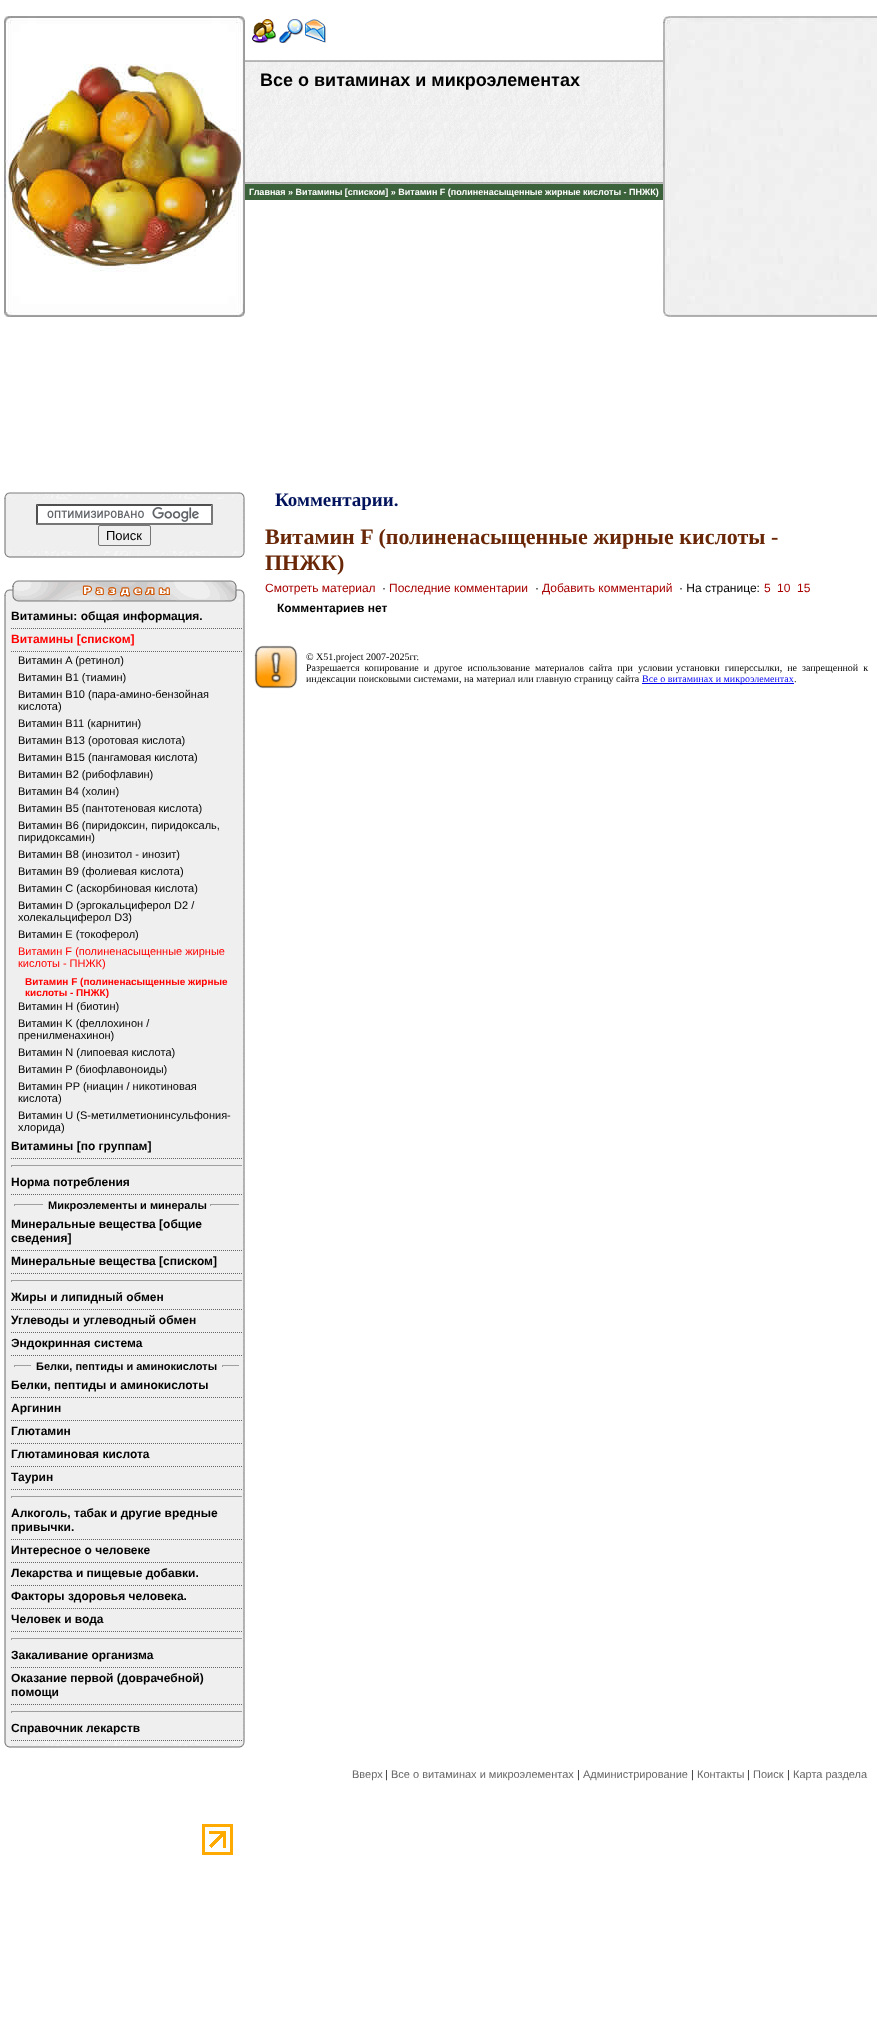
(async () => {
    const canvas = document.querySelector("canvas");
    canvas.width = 881;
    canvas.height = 2017;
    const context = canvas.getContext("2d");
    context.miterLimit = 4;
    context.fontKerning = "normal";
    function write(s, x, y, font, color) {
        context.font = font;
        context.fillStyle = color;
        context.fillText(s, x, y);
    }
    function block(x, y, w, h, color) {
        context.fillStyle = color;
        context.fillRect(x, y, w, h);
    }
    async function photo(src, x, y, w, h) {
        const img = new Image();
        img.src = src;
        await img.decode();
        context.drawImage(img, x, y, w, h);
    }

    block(0, 0, 881, 2017, "rgb(255, 255, 255)");
    await photo("media/1.png", 4, 16, 241, 301);
    await photo("media/2.png", 252, 19, 24, 24);
    await photo("media/3.png", 279, 19, 24, 24);
    await photo("media/4.png", 305, 19, 21, 24);
    await photo("media/5.png", 245, 60, 418, 124);
    write("Все о витаминах и микроэлементах", 260, 86, "bold 18px Liberation Sans", "rgb(0, 0, 0)");
    block(245, 184, 418, 16, "rgb(60, 98, 59)");
    write("Главная » Витамины [списком] » Витамин F (полиненасыщенные жирные кислоты - ПНЖК)", 249, 195, "bold 9px Liberation Sans", "rgb(255, 255, 255)");
    await photo("media/6.png", 663, 16, 214, 301);
    await photo("media/7.png", 4, 492, 241, 7);
    await photo("media/8.png", 4, 499, 241, 52);
    block(36, 504, 177, 21, "rgb(255, 255, 255)");
    await photo("media/9.png", 47, 507, 152, 15);
    context.fillStyle = "rgb(79, 79, 79)";
    context.beginPath();
    context.moveTo(36, 504);
    context.lineTo(213, 504);
    context.lineTo(211, 506);
    context.lineTo(38, 506);
    context.closePath();
    context.fill();
    context.fillStyle = "rgb(118, 118, 118)";
    context.beginPath();
    context.moveTo(213, 504);
    context.lineTo(213, 525);
    context.lineTo(211, 523);
    context.lineTo(211, 506);
    context.closePath();
    context.fill();
    context.beginPath();
    context.moveTo(213, 525);
    context.lineTo(36, 525);
    context.lineTo(38, 523);
    context.lineTo(211, 523);
    context.closePath();
    context.fill();
    context.fillStyle = "rgb(79, 79, 79)";
    context.beginPath();
    context.moveTo(36, 525);
    context.lineTo(36, 504);
    context.lineTo(38, 506);
    context.lineTo(38, 523);
    context.closePath();
    context.fill();
    context.beginPath();
    context.roundRect(98.5, 525.5, 52, 20, 1.5);
    context.strokeStyle = "rgb(118, 118, 118)";
    context.stroke();
    write("Поиск", 106, 540, "13px Liberation Sans", "rgb(0, 0, 0)");
    await photo("media/10.png", 4, 551, 241, 7);
    await photo("media/11.png", 4, 580, 241, 22);
    await photo("media/12.png", 4, 602, 241, 1139);
    context.beginPath();
    context.moveTo(11, 628.5);
    context.lineTo(243, 628.5);
    context.strokeStyle = "rgb(102, 102, 102)";
    context.setLineDash([1, 1]);
    context.stroke();
    write("Витамины: общая информация.", 11, 620, "bold 12px Liberation Sans", "rgb(0, 0, 0)");
    context.beginPath();
    context.moveTo(11, 651.5);
    context.lineTo(243, 651.5);
    context.stroke();
    write("Витамины [списком]", 11, 643, "bold 12px Liberation Sans", "rgb(255, 0, 0)");
    write("Витамин A (ретинол)", 18, 664, "11px Liberation Sans", "rgb(0, 0, 0)");
    write("Витамин B1 (тиамин)", 18, 681, "11px Liberation Sans", "rgb(0, 0, 0)");
    write("Витамин B10 (пара-амино-бензойная", 18, 698, "11px Liberation Sans", "rgb(0, 0, 0)");
    write("кислота)", 18, 710, "11px Liberation Sans", "rgb(0, 0, 0)");
    write("Витамин B11 (карнитин)", 18, 727, "11px Liberation Sans", "rgb(0, 0, 0)");
    write("Витамин B13 (оротовая кислота)", 18, 744, "11px Liberation Sans", "rgb(0, 0, 0)");
    write("Витамин B15 (пангамовая кислота)", 18, 761, "11px Liberation Sans", "rgb(0, 0, 0)");
    write("Витамин B2 (рибофлавин)", 18, 778, "11px Liberation Sans", "rgb(0, 0, 0)");
    write("Витамин B4 (холин)", 18, 795, "11px Liberation Sans", "rgb(0, 0, 0)");
    write("Витамин B5 (пантотеновая кислота)", 18, 812, "11px Liberation Sans", "rgb(0, 0, 0)");
    write("Витамин B6 (пиридоксин, пиридоксаль,", 18, 829, "11px Liberation Sans", "rgb(0, 0, 0)");
    write("пиридоксамин)", 18, 841, "11px Liberation Sans", "rgb(0, 0, 0)");
    write("Витамин B8 (инозитол - инозит)", 18, 858, "11px Liberation Sans", "rgb(0, 0, 0)");
    write("Витамин B9 (фолиевая кислота)", 18, 875, "11px Liberation Sans", "rgb(0, 0, 0)");
    write("Витамин C (аскорбиновая кислота)", 18, 892, "11px Liberation Sans", "rgb(0, 0, 0)");
    write("Витамин D (эргокальциферол D2 /", 18, 909, "11px Liberation Sans", "rgb(0, 0, 0)");
    write("холекальциферол D3)", 18, 921, "11px Liberation Sans", "rgb(0, 0, 0)");
    write("Витамин E (токоферол)", 18, 938, "11px Liberation Sans", "rgb(0, 0, 0)");
    write("Витамин F (полиненасыщенные жирные", 18, 955, "11px Liberation Sans", "rgb(255, 0, 0)");
    write("кислоты - ПНЖК)", 18, 967, "11px Liberation Sans", "rgb(255, 0, 0)");
    write("Витамин F (полиненасыщенные жирные", 25, 985, "bold 10px Liberation Sans", "rgb(255, 0, 0)");
    write("кислоты - ПНЖК)", 25, 996, "bold 10px Liberation Sans", "rgb(255, 0, 0)");
    write("Витамин H (биотин)", 18, 1010, "11px Liberation Sans", "rgb(0, 0, 0)");
    write("Витамин K (феллохинон /", 18, 1027, "11px Liberation Sans", "rgb(0, 0, 0)");
    write("пренилменахинон)", 18, 1039, "11px Liberation Sans", "rgb(0, 0, 0)");
    write("Витамин N (липоевая кислота)", 18, 1056, "11px Liberation Sans", "rgb(0, 0, 0)");
    write("Витамин P (биофлавоноиды)", 18, 1073, "11px Liberation Sans", "rgb(0, 0, 0)");
    write("Витамин PP (ниацин / никотиновая", 18, 1090, "11px Liberation Sans", "rgb(0, 0, 0)");
    write("кислота)", 18, 1102, "11px Liberation Sans", "rgb(0, 0, 0)");
    write("Витамин U (S-метилметионинсульфония-", 18, 1119, "11px Liberation Sans", "rgb(0, 0, 0)");
    write("хлорида)", 18, 1131, "11px Liberation Sans", "rgb(0, 0, 0)");
    context.beginPath();
    context.moveTo(11, 1158.5);
    context.lineTo(243, 1158.5);
    context.stroke();
    write("Витамины [по группам]", 11, 1150, "bold 12px Liberation Sans", "rgb(0, 0, 0)");
    block(11, 1165, 232, 1, "rgb(159, 159, 159)");
    block(242, 1165, 1, 2, "rgb(238, 238, 238)");
    block(11, 1165, 1, 2, "rgb(159, 159, 159)");
    context.beginPath();
    context.moveTo(11, 1194.5);
    context.lineTo(243, 1194.5);
    context.stroke();
    write("Норма потребления", 11, 1186, "bold 12px Liberation Sans", "rgb(0, 0, 0)");
    block(14, 1204, 30, 1, "rgb(159, 159, 159)");
    block(43, 1204, 1, 2, "rgb(238, 238, 238)");
    block(14, 1204, 1, 2, "rgb(159, 159, 159)");
    write("Микроэлементы и минералы", 48, 1209, "bold 11px Liberation Sans", "rgb(0, 0, 0)");
    block(210, 1204, 30, 1, "rgb(159, 159, 159)");
    block(239, 1204, 1, 2, "rgb(238, 238, 238)");
    block(210, 1204, 1, 2, "rgb(159, 159, 159)");
    context.beginPath();
    context.moveTo(11, 1250.5);
    context.lineTo(243, 1250.5);
    context.stroke();
    write("Минеральные вещества [общие", 11, 1228, "bold 12px Liberation Sans", "rgb(0, 0, 0)");
    write("сведения]", 11, 1242, "bold 12px Liberation Sans", "rgb(0, 0, 0)");
    context.beginPath();
    context.moveTo(11, 1273.5);
    context.lineTo(243, 1273.5);
    context.stroke();
    write("Минеральные вещества [списком]", 11, 1265, "bold 12px Liberation Sans", "rgb(0, 0, 0)");
    block(11, 1280, 232, 1, "rgb(159, 159, 159)");
    block(242, 1280, 1, 2, "rgb(238, 238, 238)");
    block(11, 1280, 1, 2, "rgb(159, 159, 159)");
    context.beginPath();
    context.moveTo(11, 1309.5);
    context.lineTo(243, 1309.5);
    context.stroke();
    write("Жиры и липидный обмен", 11, 1301, "bold 12px Liberation Sans", "rgb(0, 0, 0)");
    context.beginPath();
    context.moveTo(11, 1332.5);
    context.lineTo(243, 1332.5);
    context.stroke();
    write("Углеводы и углеводный обмен", 11, 1324, "bold 12px Liberation Sans", "rgb(0, 0, 0)");
    context.beginPath();
    context.moveTo(11, 1355.5);
    context.lineTo(243, 1355.5);
    context.stroke();
    write("Эндокринная система", 11, 1347, "bold 12px Liberation Sans", "rgb(0, 0, 0)");
    block(14, 1365, 18, 1, "rgb(159, 159, 159)");
    block(31, 1365, 1, 2, "rgb(238, 238, 238)");
    block(14, 1365, 1, 2, "rgb(159, 159, 159)");
    write("Белки, пептиды и аминокислоты", 36, 1370, "bold 11px Liberation Sans", "rgb(0, 0, 0)");
    block(222, 1365, 18, 1, "rgb(159, 159, 159)");
    block(239, 1365, 1, 2, "rgb(238, 238, 238)");
    block(222, 1365, 1, 2, "rgb(159, 159, 159)");
    context.beginPath();
    context.moveTo(11, 1397.5);
    context.lineTo(243, 1397.5);
    context.stroke();
    write("Белки, пептиды и аминокислоты", 11, 1389, "bold 12px Liberation Sans", "rgb(0, 0, 0)");
    context.beginPath();
    context.moveTo(11, 1420.5);
    context.lineTo(243, 1420.5);
    context.stroke();
    write("Аргинин", 11, 1412, "bold 12px Liberation Sans", "rgb(0, 0, 0)");
    context.beginPath();
    context.moveTo(11, 1443.5);
    context.lineTo(243, 1443.5);
    context.stroke();
    write("Глютамин", 11, 1435, "bold 12px Liberation Sans", "rgb(0, 0, 0)");
    context.beginPath();
    context.moveTo(11, 1466.5);
    context.lineTo(243, 1466.5);
    context.stroke();
    write("Глютаминовая кислота", 11, 1458, "bold 12px Liberation Sans", "rgb(0, 0, 0)");
    context.beginPath();
    context.moveTo(11, 1489.5);
    context.lineTo(243, 1489.5);
    context.stroke();
    write("Таурин", 11, 1481, "bold 12px Liberation Sans", "rgb(0, 0, 0)");
    block(11, 1496, 232, 1, "rgb(159, 159, 159)");
    block(242, 1496, 1, 2, "rgb(238, 238, 238)");
    block(11, 1496, 1, 2, "rgb(159, 159, 159)");
    context.beginPath();
    context.moveTo(11, 1539.5);
    context.lineTo(243, 1539.5);
    context.stroke();
    write("Алкоголь, табак и другие вредные", 11, 1517, "bold 12px Liberation Sans", "rgb(0, 0, 0)");
    write("привычки.", 11, 1531, "bold 12px Liberation Sans", "rgb(0, 0, 0)");
    context.beginPath();
    context.moveTo(11, 1562.5);
    context.lineTo(243, 1562.5);
    context.stroke();
    write("Интересное о человеке", 11, 1554, "bold 12px Liberation Sans", "rgb(0, 0, 0)");
    context.beginPath();
    context.moveTo(11, 1585.5);
    context.lineTo(243, 1585.5);
    context.stroke();
    write("Лекарства и пищевые добавки.", 11, 1577, "bold 12px Liberation Sans", "rgb(0, 0, 0)");
    context.beginPath();
    context.moveTo(11, 1608.5);
    context.lineTo(243, 1608.5);
    context.stroke();
    write("Факторы здоровья человека.", 11, 1600, "bold 12px Liberation Sans", "rgb(0, 0, 0)");
    context.beginPath();
    context.moveTo(11, 1631.5);
    context.lineTo(243, 1631.5);
    context.stroke();
    write("Человек и вода", 11, 1623, "bold 12px Liberation Sans", "rgb(0, 0, 0)");
    block(11, 1638, 232, 1, "rgb(159, 159, 159)");
    block(242, 1638, 1, 2, "rgb(238, 238, 238)");
    block(11, 1638, 1, 2, "rgb(159, 159, 159)");
    context.beginPath();
    context.moveTo(11, 1667.5);
    context.lineTo(243, 1667.5);
    context.stroke();
    write("Закаливание организма", 11, 1659, "bold 12px Liberation Sans", "rgb(0, 0, 0)");
    context.beginPath();
    context.moveTo(11, 1704.5);
    context.lineTo(243, 1704.5);
    context.stroke();
    write("Оказание первой (доврачебной)", 11, 1682, "bold 12px Liberation Sans", "rgb(0, 0, 0)");
    write("помощи", 11, 1696, "bold 12px Liberation Sans", "rgb(0, 0, 0)");
    block(11, 1711, 232, 1, "rgb(159, 159, 159)");
    block(242, 1711, 1, 2, "rgb(238, 238, 238)");
    block(11, 1711, 1, 2, "rgb(159, 159, 159)");
    context.beginPath();
    context.moveTo(11, 1740.5);
    context.lineTo(243, 1740.5);
    context.stroke();
    write("Справочник лекарств", 11, 1732, "bold 12px Liberation Sans", "rgb(0, 0, 0)");
    await photo("media/10.png", 4, 1741, 241, 7);
    write("Комментарии.", 275, 506, "bold 19px Liberation Serif", "rgb(0, 18, 91)");
    write("Витамин F (полиненасыщенные жирные кислоты -", 265, 544, "bold 22px Liberation Serif", "rgb(105, 39, 7)");
    write("ПНЖК)", 265, 570, "bold 22px Liberation Serif", "rgb(105, 39, 7)");
    write("Смотреть материал", 265, 592, "12px Liberation Sans", "rgb(168, 0, 0)");
    write("·", 382, 592, "12px Liberation Sans", "rgb(0, 0, 0)");
    write("Последние комментарии", 389, 592, "12px Liberation Sans", "rgb(168, 0, 0)");
    write("·", 535, 592, "12px Liberation Sans", "rgb(0, 0, 0)");
    write("Добавить комментарий", 542, 592, "12px Liberation Sans", "rgb(168, 0, 0)");
    write("· На странице:", 679, 592, "12px Liberation Sans", "rgb(0, 0, 0)");
    write("5", 764, 592, "12px Liberation Sans", "rgb(168, 0, 0)");
    write("10", 777, 592, "12px Liberation Sans", "rgb(168, 0, 0)");
    write("15", 797, 592, "12px Liberation Sans", "rgb(168, 0, 0)");
    write("Комментариев нет", 277, 612, "bold 12px Liberation Sans", "rgb(0, 0, 0)");
    await photo("media/13.png", 254, 645, 44, 44);
    write("© X51.project 2007-2025гг.", 306, 660, "10px Liberation Serif", "rgb(0, 0, 0)");
    context.wordSpacing = "2.5px";
    write("Разрешается копирование и другое использование материалов сайта при условии", 306, 671, "10px Liberation Serif", "rgb(0, 0, 0)");
    write("установки гиперссылки, не запрещенной к", 676, 671, "10px Liberation Serif", "rgb(0, 0, 0)");
    context.wordSpacing = "0px";
    write("индексации поисковыми системами, на материал или главную страницу сайта", 306, 682, "10px Liberation Serif", "rgb(0, 0, 0)");
    block(642, 683, 152, 1, "rgb(0, 0, 238)");
    write("Все о витаминах и микроэлементах", 642, 682, "10px Liberation Serif", "rgb(0, 0, 238)");
    write(".", 794, 682, "10px Liberation Serif", "rgb(0, 0, 0)");
    write("Вверх", 352, 1778, "11px Liberation Sans", "rgb(102, 102, 102)");
    write("|", 385, 1778, "11px Liberation Sans", "rgb(51, 51, 51)");
    write("Все о витаминах и микроэлементах", 391, 1778, "11px Liberation Sans", "rgb(102, 102, 102)");
    write("|", 577, 1778, "11px Liberation Sans", "rgb(51, 51, 51)");
    write("Администрирование", 583, 1778, "11px Liberation Sans", "rgb(102, 102, 102)");
    write("|", 691, 1778, "11px Liberation Sans", "rgb(51, 51, 51)");
    write("Контакты", 697, 1778, "11px Liberation Sans", "rgb(102, 102, 102)");
    write("|", 747, 1778, "11px Liberation Sans", "rgb(51, 51, 51)");
    write("Поиск", 753, 1778, "11px Liberation Sans", "rgb(102, 102, 102)");
    write("|", 787, 1778, "11px Liberation Sans", "rgb(51, 51, 51)");
    write("Карта раздела", 793, 1778, "11px Liberation Sans", "rgb(102, 102, 102)");
    await photo("media/14.png", 202, 1824, 31, 31);
})();
